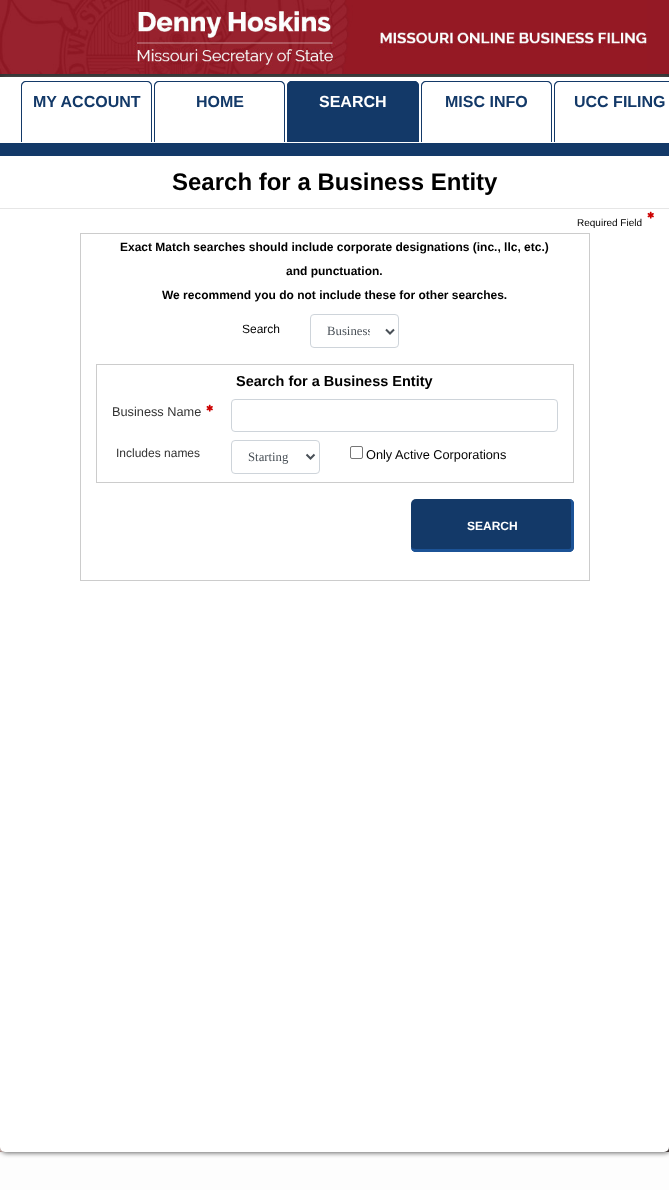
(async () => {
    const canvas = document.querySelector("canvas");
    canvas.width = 669;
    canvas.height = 1190;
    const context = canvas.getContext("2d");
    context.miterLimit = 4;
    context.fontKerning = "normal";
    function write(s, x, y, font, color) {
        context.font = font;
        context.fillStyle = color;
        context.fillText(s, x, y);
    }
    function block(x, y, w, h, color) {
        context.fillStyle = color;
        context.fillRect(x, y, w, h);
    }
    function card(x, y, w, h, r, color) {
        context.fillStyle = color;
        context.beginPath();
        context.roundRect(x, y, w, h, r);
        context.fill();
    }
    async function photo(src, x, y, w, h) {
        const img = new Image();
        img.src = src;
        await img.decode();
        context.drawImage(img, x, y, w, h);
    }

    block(0, 0, 669, 1190, "rgb(253, 253, 253)");
    await photo("media/1.png", 0, 1147, 669, 5);
    block(647, 0, 22, 74, "rgb(148, 25, 37)");
    block(0, 74, 669, 3, "rgb(51, 51, 51)");
    context.fillStyle = "rgb(102, 102, 102)";
    context.filter = "blur(2.5px)";
    context.beginPath();
    context.roundRect(1, 78, 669, 1075, 5);
    context.fill();
    context.filter = "none";
    await photo("media/2.png", 0, 0, 647, 74);
    context.fillStyle = "rgb(255, 255, 255)";
    context.beginPath();
    context.roundRect(0, 77, 669, 1075, [0, 0, 5, 5]);
    context.fill();
    context.fillStyle = "rgb(19, 57, 104)";
    context.beginPath();
    context.moveTo(26, 81);
    context.lineTo(147, 81);
    context.bezierCurveTo(150, 81, 152, 83, 152, 86);
    context.lineTo(152, 142);
    context.lineTo(21, 142);
    context.lineTo(21, 86);
    context.bezierCurveTo(21, 83, 23, 81, 26, 81);
    context.closePath();
    context.moveTo(26, 82);
    context.lineTo(147, 82);
    context.bezierCurveTo(149, 82, 151, 84, 151, 86);
    context.lineTo(151, 142);
    context.lineTo(22, 142);
    context.lineTo(22, 86);
    context.bezierCurveTo(22, 84, 24, 82, 26, 82);
    context.closePath();
    context.fill("evenodd");
    write("MY ACCOUNT", 33, 107, "bold 16px Liberation Sans", "rgb(19, 57, 104)");
    context.beginPath();
    context.moveTo(159, 81);
    context.lineTo(280, 81);
    context.bezierCurveTo(283, 81, 285, 83, 285, 86);
    context.lineTo(285, 142);
    context.lineTo(154, 142);
    context.lineTo(154, 86);
    context.bezierCurveTo(154, 83, 156, 81, 159, 81);
    context.closePath();
    context.moveTo(159, 82);
    context.lineTo(280, 82);
    context.bezierCurveTo(282, 82, 284, 84, 284, 86);
    context.lineTo(284, 142);
    context.lineTo(155, 142);
    context.lineTo(155, 86);
    context.bezierCurveTo(155, 84, 157, 82, 159, 82);
    context.closePath();
    context.fill("evenodd");
    write("HOME", 196, 107, "bold 16px Liberation Sans", "rgb(19, 57, 104)");
    context.beginPath();
    context.roundRect(287, 81, 132, 61, [5, 5, 0, 0]);
    context.fill();
    context.beginPath();
    context.moveTo(292, 81);
    context.lineTo(414, 81);
    context.bezierCurveTo(417, 81, 419, 83, 419, 86);
    context.lineTo(419, 142);
    context.lineTo(287, 142);
    context.lineTo(287, 86);
    context.bezierCurveTo(287, 83, 289, 81, 292, 81);
    context.closePath();
    context.moveTo(292, 82);
    context.lineTo(414, 82);
    context.bezierCurveTo(416, 82, 418, 84, 418, 86);
    context.lineTo(418, 142);
    context.lineTo(288, 142);
    context.lineTo(288, 86);
    context.bezierCurveTo(288, 84, 290, 82, 292, 82);
    context.closePath();
    context.fill("evenodd");
    write("SEARCH", 319, 107, "bold 16px Liberation Sans", "rgb(255, 255, 255)");
    context.fillStyle = "rgb(19, 57, 104)";
    context.beginPath();
    context.moveTo(426, 81);
    context.lineTo(547, 81);
    context.bezierCurveTo(550, 81, 552, 83, 552, 86);
    context.lineTo(552, 142);
    context.lineTo(421, 142);
    context.lineTo(421, 86);
    context.bezierCurveTo(421, 83, 423, 81, 426, 81);
    context.closePath();
    context.moveTo(426, 82);
    context.lineTo(547, 82);
    context.bezierCurveTo(549, 82, 551, 84, 551, 86);
    context.lineTo(551, 142);
    context.lineTo(422, 142);
    context.lineTo(422, 86);
    context.bezierCurveTo(422, 84, 424, 82, 426, 82);
    context.closePath();
    context.fill("evenodd");
    write("MISC INFO", 445, 107, "bold 16px Liberation Sans", "rgb(19, 57, 104)");
    context.beginPath();
    context.moveTo(559, 81);
    context.lineTo(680, 81);
    context.bezierCurveTo(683, 81, 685, 83, 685, 86);
    context.lineTo(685, 142);
    context.lineTo(554, 142);
    context.lineTo(554, 86);
    context.bezierCurveTo(554, 83, 556, 81, 559, 81);
    context.closePath();
    context.moveTo(559, 82);
    context.lineTo(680, 82);
    context.bezierCurveTo(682, 82, 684, 84, 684, 86);
    context.lineTo(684, 142);
    context.lineTo(555, 142);
    context.lineTo(555, 86);
    context.bezierCurveTo(555, 84, 557, 82, 559, 82);
    context.closePath();
    context.fill("evenodd");
    write("UCC FILING", 574, 107, "bold 16px Liberation Sans", "rgb(19, 57, 104)");
    block(0, 143, 669, 13, "rgb(19, 57, 104)");
    write("Search for a Business Entity", 172, 190, "bold 24px Liberation Sans", "rgb(0, 0, 0)");
    block(0, 208, 669, 1, "rgb(230, 230, 230)");
    await photo("media/3.png", 647, 211, 7, 8);
    write("Required Field", 577, 226, "10px Liberation Sans", "rgb(0, 0, 0)");
    context.strokeStyle = "rgb(204, 204, 204)";
    context.strokeRect(80.5, 233.5, 509, 347);
    write("Exact Match searches should include corporate designations (inc., llc, etc.)", 120, 251, "bold 12px Liberation Sans", "rgb(0, 0, 0)");
    write("and punctuation.", 286, 275, "bold 12px Liberation Sans", "rgb(0, 0, 0)");
    write("We recommend you do not include these for other searches.", 162, 299, "bold 12px Liberation Sans", "rgb(0, 0, 0)");
    write("Search", 242, 333, "12px Liberation Sans", "rgb(0, 0, 0)");
    context.beginPath();
    context.roundRect(310.5, 314.5, 88, 33, 3.5);
    context.strokeStyle = "rgb(206, 212, 218)";
    context.stroke();
    context.beginPath();
    context.moveTo(386, 329.5);
    context.lineTo(390, 333.5);
    context.lineTo(394, 329.5);
    context.strokeStyle = "rgb(73, 80, 87)";
    context.lineWidth = 2;
    context.stroke();
    context.save();
    context.beginPath();
    context.rect(327, 323, 43, 16);
    context.clip();
    write("Business", 327, 335, "12.75px Liberation Serif", "rgb(73, 80, 87)");
    context.restore();
    context.strokeStyle = "rgb(204, 204, 204)";
    context.lineWidth = 1;
    context.strokeRect(96.5, 364.5, 477, 118);
    write("Search for a Business Entity", 236, 386, "bold 14.5px Liberation Sans", "rgb(0, 0, 0)");
    write("Business Name", 112, 416, "12.75px Liberation Sans", "rgb(51, 51, 51)");
    await photo("media/3.png", 206, 404, 7, 8);
    context.beginPath();
    context.roundRect(231.5, 399.5, 326, 32, 3.5);
    context.strokeStyle = "rgb(206, 212, 218)";
    context.stroke();
    write("Includes names", 116, 457, "12px Liberation Sans", "rgb(51, 51, 51)");
    context.beginPath();
    context.roundRect(231.5, 440.5, 88, 33, 3.5);
    context.stroke();
    context.beginPath();
    context.moveTo(306.5, 454.5);
    context.lineTo(310.5, 458.5);
    context.lineTo(314.5, 454.5);
    context.strokeStyle = "rgb(73, 80, 87)";
    context.lineWidth = 2;
    context.stroke();
    write("Starting", 248, 461, "12.75px Liberation Serif", "rgb(73, 80, 87)");
    context.beginPath();
    context.roundRect(350.5, 446.5, 12, 12, 1.5);
    context.strokeStyle = "rgb(118, 118, 118)";
    context.lineWidth = 1;
    context.stroke();
    write("Only Active Corporations", 366, 459, "12.75px Liberation Sans", "rgb(0, 0, 0)");
    card(411, 499, 163, 53, 5, "rgb(19, 57, 104)");
    context.fillStyle = "rgb(28, 83, 151)";
    context.beginPath();
    context.moveTo(416, 499);
    context.lineTo(569, 499);
    context.bezierCurveTo(572, 499, 574, 501, 574, 504);
    context.lineTo(574, 547);
    context.bezierCurveTo(574, 550, 572, 552, 569, 552);
    context.lineTo(416, 552);
    context.bezierCurveTo(413, 552, 411, 550, 411, 547);
    context.lineTo(411, 504);
    context.bezierCurveTo(411, 501, 413, 499, 416, 499);
    context.closePath();
    context.moveTo(416, 499);
    context.lineTo(569, 499);
    context.bezierCurveTo(570, 499, 571, 501, 571, 504);
    context.lineTo(571, 547);
    context.bezierCurveTo(571, 548, 570, 549, 569, 549);
    context.lineTo(416, 549);
    context.bezierCurveTo(413, 549, 411, 548, 411, 547);
    context.lineTo(411, 504);
    context.bezierCurveTo(411, 501, 413, 499, 416, 499);
    context.closePath();
    context.fill("evenodd");
    write("SEARCH", 467, 530, "bold 12px Liberation Sans", "rgb(255, 255, 255)");
})();
